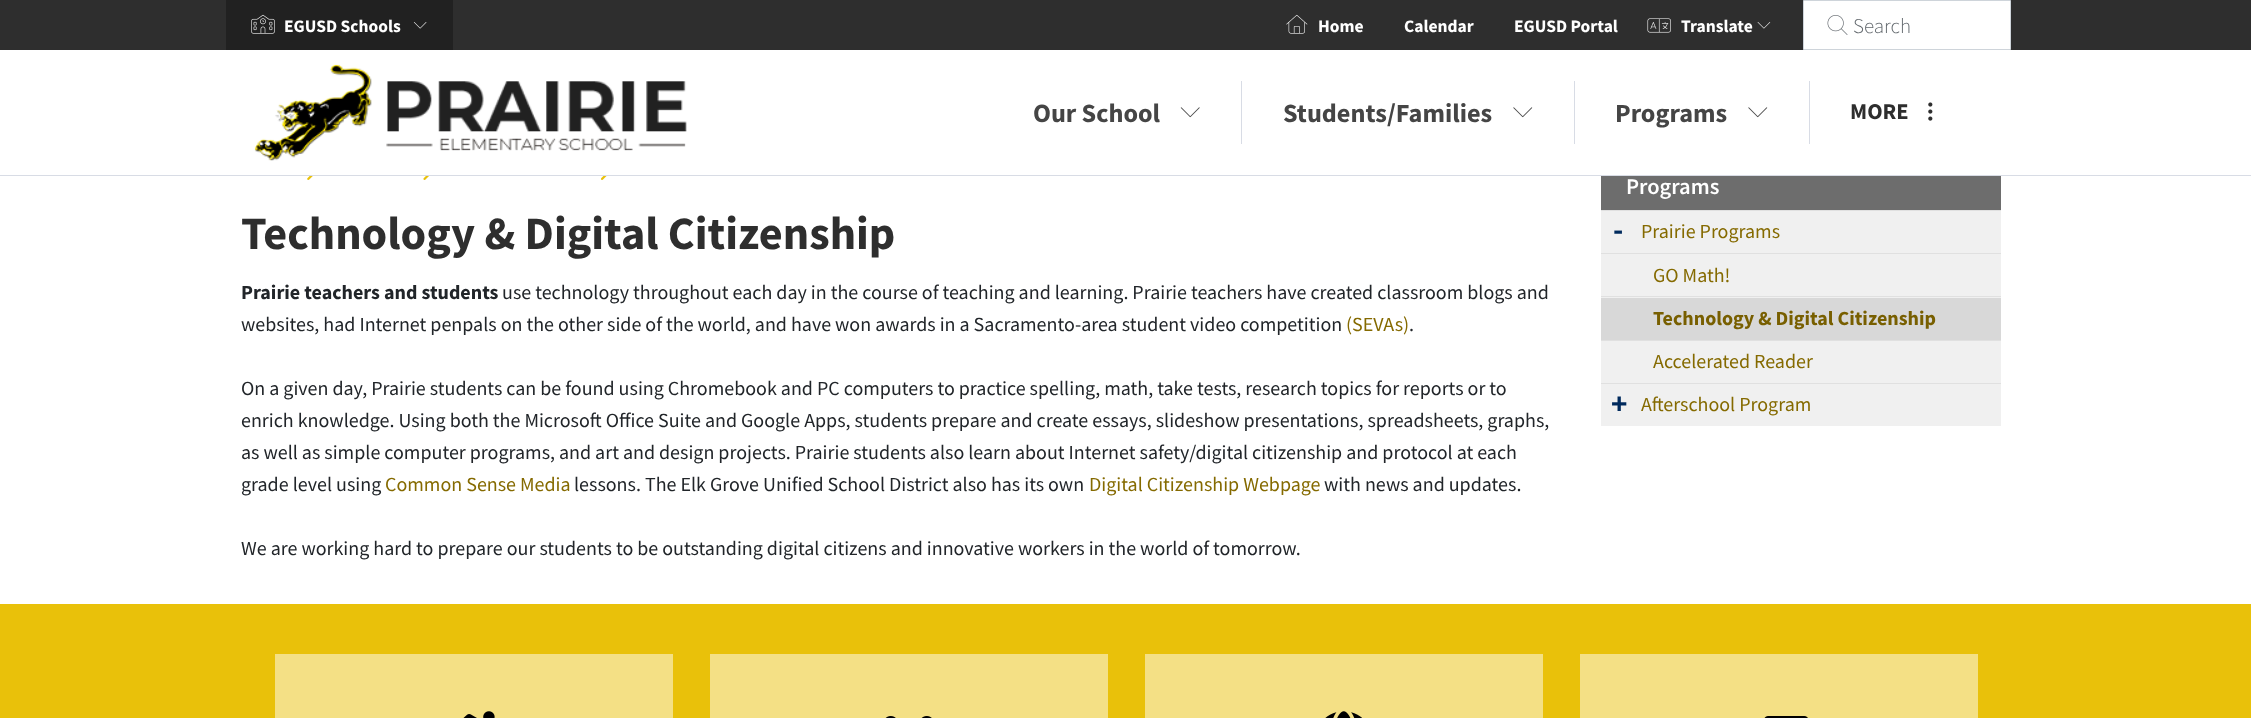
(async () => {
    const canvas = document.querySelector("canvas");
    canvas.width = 2251;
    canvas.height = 718;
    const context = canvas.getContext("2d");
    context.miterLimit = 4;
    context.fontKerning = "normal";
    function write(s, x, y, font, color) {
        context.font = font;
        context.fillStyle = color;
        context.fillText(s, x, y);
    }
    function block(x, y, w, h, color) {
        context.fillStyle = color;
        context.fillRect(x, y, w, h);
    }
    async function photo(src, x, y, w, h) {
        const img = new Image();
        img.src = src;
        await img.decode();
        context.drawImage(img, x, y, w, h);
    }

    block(0, 0, 2251, 718, "rgb(255, 255, 255)");
    block(0, 175, 2251, 1, "rgb(216, 220, 229)");
    block(0, 0, 2251, 50, "rgb(46, 46, 46)");
    block(226, 0, 227, 50, "rgb(33, 33, 33)");
    await photo("media/1.png", 251, 14, 24, 20);
    write("EGUSD Schools", 284, 32, "bold 17.5px Source Sans Pro", "rgb(255, 255, 255)");
    await photo("media/2.png", 413, 22, 14, 7);
    await photo("media/3.png", 1286, 14, 22, 20);
    write("Home", 1318, 32, "bold 17.5px Source Sans Pro", "rgb(255, 255, 255)");
    write("Calendar", 1404, 32, "bold 17.5px Source Sans Pro", "rgb(255, 255, 255)");
    write("EGUSD Portal", 1514, 32, "bold 17.5px Source Sans Pro", "rgb(255, 255, 255)");
    await photo("media/4.png", 1647, 18, 24, 15);
    write("Translate", 1681, 32, "bold 17.5px Source Sans Pro", "rgb(255, 255, 255)");
    await photo("media/5.png", 1757, 22, 14, 7);
    context.beginPath();
    context.rect(1803.5, 0.5, 207, 49);
    context.fill();
    context.strokeStyle = "rgb(206, 212, 218)";
    context.stroke();
    await photo("media/6.png", 1827, 15, 21, 20);
    write("Search", 1853, 33, "300 21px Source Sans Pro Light", "rgb(98, 104, 109)");
    await photo("media/7.png", 254, 64, 433, 97);
    block(1241, 81, 1, 63, "rgb(216, 220, 229)");
    write("Our School", 1033, 122, "bold 26.25px Source Sans Pro", "rgb(69, 69, 69)");
    await photo("media/8.png", 1180, 107, 20, 11);
    block(1574, 81, 1, 63, "rgb(216, 220, 229)");
    write("Students/Families", 1283, 122, "bold 26.25px Source Sans Pro", "rgb(69, 69, 69)");
    await photo("media/9.png", 1513, 107, 20, 11);
    block(1809, 81, 1, 63, "rgb(216, 220, 229)");
    write("Programs", 1615, 122, "bold 26.25px Source Sans Pro", "rgb(69, 69, 69)");
    await photo("media/9.png", 1748, 107, 20, 11);
    write("MORE", 1850, 119, "bold 22.5px Source Sans Pro", "rgb(46, 46, 46)");
    await photo("media/10.png", 1928, 102, 5, 19);
    await photo("media/11.png", 307, 176, 6, 4);
    await photo("media/12.png", 423, 176, 6, 4);
    await photo("media/13.png", 601, 176, 6, 4);
    write("Technology & Digital Citizenship", 241, 249, "bold 46.25px Source Sans Pro", "rgb(46, 46, 46)");
    write("Prairie teachers and students", 241, 299, "bold 20px Source Sans Pro", "rgb(33, 37, 41)");
    write("use technology throughout each day in the course of teaching and learning. Prairie teachers have created classroom blogs and", 502, 299, "20px Source Sans Pro", "rgb(33, 37, 41)");
    write("websites, had Internet penpals on the other side of the world, and have won awards in a Sacramento-area student video competition", 241, 331, "20px Source Sans Pro", "rgb(33, 37, 41)");
    write("(SEVAs)", 1346, 331, "20px Source Sans Pro", "rgb(133, 106, 0)");
    write(".", 1409, 331, "20px Source Sans Pro", "rgb(33, 37, 41)");
    write("On a given day, Prairie students can be found using Chromebook and PC computers to practice spelling, math, take tests, research topics for reports or to", 241, 395, "20px Source Sans Pro", "rgb(33, 37, 41)");
    write("enrich knowledge. Using both the Microsoft Office Suite and Google Apps, students prepare and create essays, slideshow presentations, spreadsheets, graphs,", 241, 427, "20px Source Sans Pro", "rgb(33, 37, 41)");
    write("as well as simple computer programs, and art and design projects. Prairie students also learn about Internet safety/digital citizenship and protocol at each", 241, 459, "20px Source Sans Pro", "rgb(33, 37, 41)");
    write("grade level using", 241, 491, "20px Source Sans Pro", "rgb(33, 37, 41)");
    write("Common Sense Media", 385, 491, "20px Source Sans Pro", "rgb(133, 106, 0)");
    write("lessons. The Elk Grove Unified School District also has its own", 574, 491, "20px Source Sans Pro", "rgb(33, 37, 41)");
    write("Digital Citizenship Webpage", 1089, 491, "20px Source Sans Pro", "rgb(133, 106, 0)");
    write("with news and updates.", 1324, 491, "20px Source Sans Pro", "rgb(33, 37, 41)");
    write("We are working hard to prepare our students to be outstanding digital citizens and innovative workers in the world of tomorrow.", 241, 555, "20px Source Sans Pro", "rgb(33, 37, 41)");
    block(1601, 176, 400, 34, "rgb(109, 109, 109)");
    write("Programs", 1626, 194, "600 22.5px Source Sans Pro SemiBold", "rgb(255, 255, 255)");
    block(1601, 211, 400, 215, "rgb(240, 240, 240)");
    block(1601, 298, 400, 42, "rgb(216, 216, 216)");
    write("-", 1613, 240, "bold 31px Source Sans Pro", "rgb(0, 42, 93)");
    block(1601, 210, 400, 1, "rgb(224, 224, 224)");
    write("Prairie Programs", 1641, 238, "20px Source Sans Pro", "rgb(133, 106, 0)");
    block(1601, 253, 400, 1, "rgb(224, 224, 224)");
    write("GO Math!", 1653, 282, "20px Source Sans Pro", "rgb(133, 106, 0)");
    block(1601, 296, 400, 1, "rgb(224, 224, 224)");
    write("Technology & Digital Citizenship", 1653, 325, "bold 20px Source Sans Pro", "rgb(120, 95, 0)");
    block(1601, 340, 400, 1, "rgb(224, 224, 224)");
    write("Accelerated Reader", 1653, 368, "20px Source Sans Pro", "rgb(133, 106, 0)");
    write("+", 1611, 414, "bold 31px Source Sans Pro", "rgb(0, 42, 93)");
    block(1601, 383, 400, 1, "rgb(224, 224, 224)");
    write("Afterschool Program", 1641, 411, "20px Source Sans Pro", "rgb(133, 106, 0)");
    block(0, 604, 2251, 114, "rgb(233, 193, 10)");
    block(275, 654, 398, 64, "rgb(244, 224, 133)");
    await photo("media/14.png", 463, 711, 32, 7);
    block(710, 654, 398, 64, "rgb(244, 224, 133)");
    await photo("media/15.png", 885, 716, 47, 2);
    block(1145, 654, 398, 64, "rgb(244, 224, 133)");
    await photo("media/16.png", 1325, 711, 37, 7);
    block(1580, 654, 398, 64, "rgb(244, 224, 133)");
    await photo("media/17.png", 1764, 716, 44, 2);
})();
